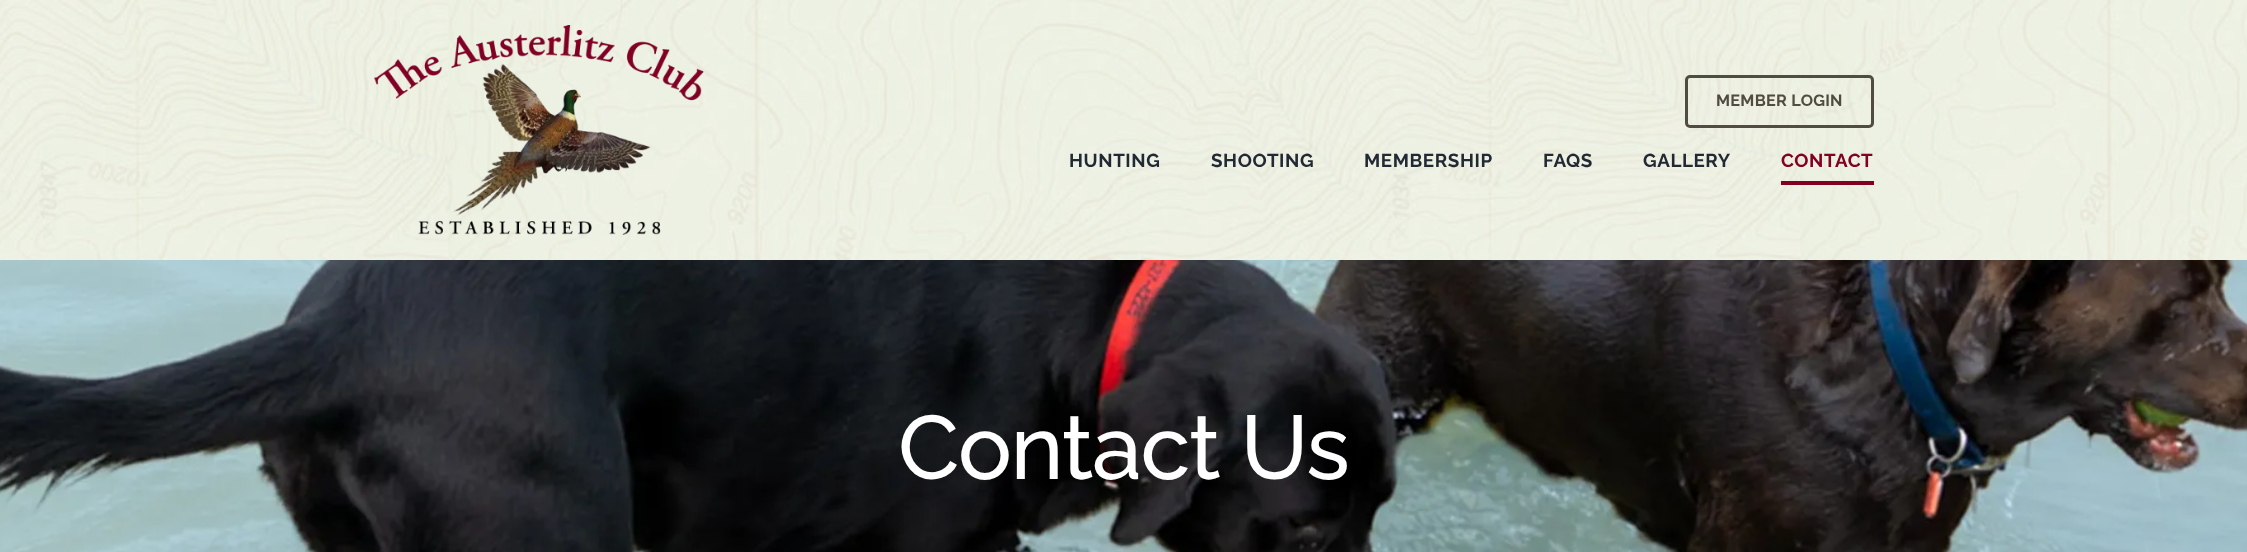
(async () => {
    const canvas = document.querySelector("canvas");
    canvas.width = 2247;
    canvas.height = 552;
    const context = canvas.getContext("2d");
    context.miterLimit = 4;
    context.fontKerning = "normal";
    function write(s, x, y, font, color) {
        context.font = font;
        context.fillStyle = color;
        context.fillText(s, x, y);
    }
    function block(x, y, w, h, color) {
        context.fillStyle = color;
        context.fillRect(x, y, w, h);
    }
    async function photo(src, x, y, w, h) {
        const img = new Image();
        img.src = src;
        await img.decode();
        context.drawImage(img, x, y, w, h);
    }

    block(0, 0, 2247, 552, "rgb(255, 255, 255)");
    await photo("media/1.png", 0, 0, 2247, 260);
    await photo("media/2.png", 374, 25, 330, 210);
    context.beginPath();
    context.roundRect(1686.5, 76.5, 186, 50, 3.5);
    context.strokeStyle = "rgb(81, 76, 64)";
    context.lineWidth = 3;
    context.stroke();
    context.letterSpacing = "0.25px";
    write("MEMBER LOGIN", 1716, 106, "bold 16.25px Raleway", "rgb(81, 76, 64)");
    context.letterSpacing = "0.6px";
    write("HUNTING", 1069, 167, "bold 18.75px Raleway", "rgb(33, 41, 52)");
    write("SHOOTING", 1211, 167, "bold 18.75px Raleway", "rgb(33, 41, 52)");
    write("MEMBERSHIP", 1364, 167, "bold 18.75px Raleway", "rgb(33, 41, 52)");
    write("FAQS", 1543, 167, "bold 18.75px Raleway", "rgb(33, 41, 52)");
    write("GALLERY", 1643, 167, "bold 18.75px Raleway", "rgb(33, 41, 52)");
    write("CONTACT", 1781, 167, "bold 18.75px Raleway", "rgb(130, 0, 35)");
    block(1781, 181, 93, 4, "rgb(130, 0, 35)");
    await photo("media/3.png", 0, 260, 2247, 292);
    context.letterSpacing = "-1.4px";
    write("Contact Us", 898, 479, "500 90px Raleway", "rgb(255, 255, 255)");
})();
